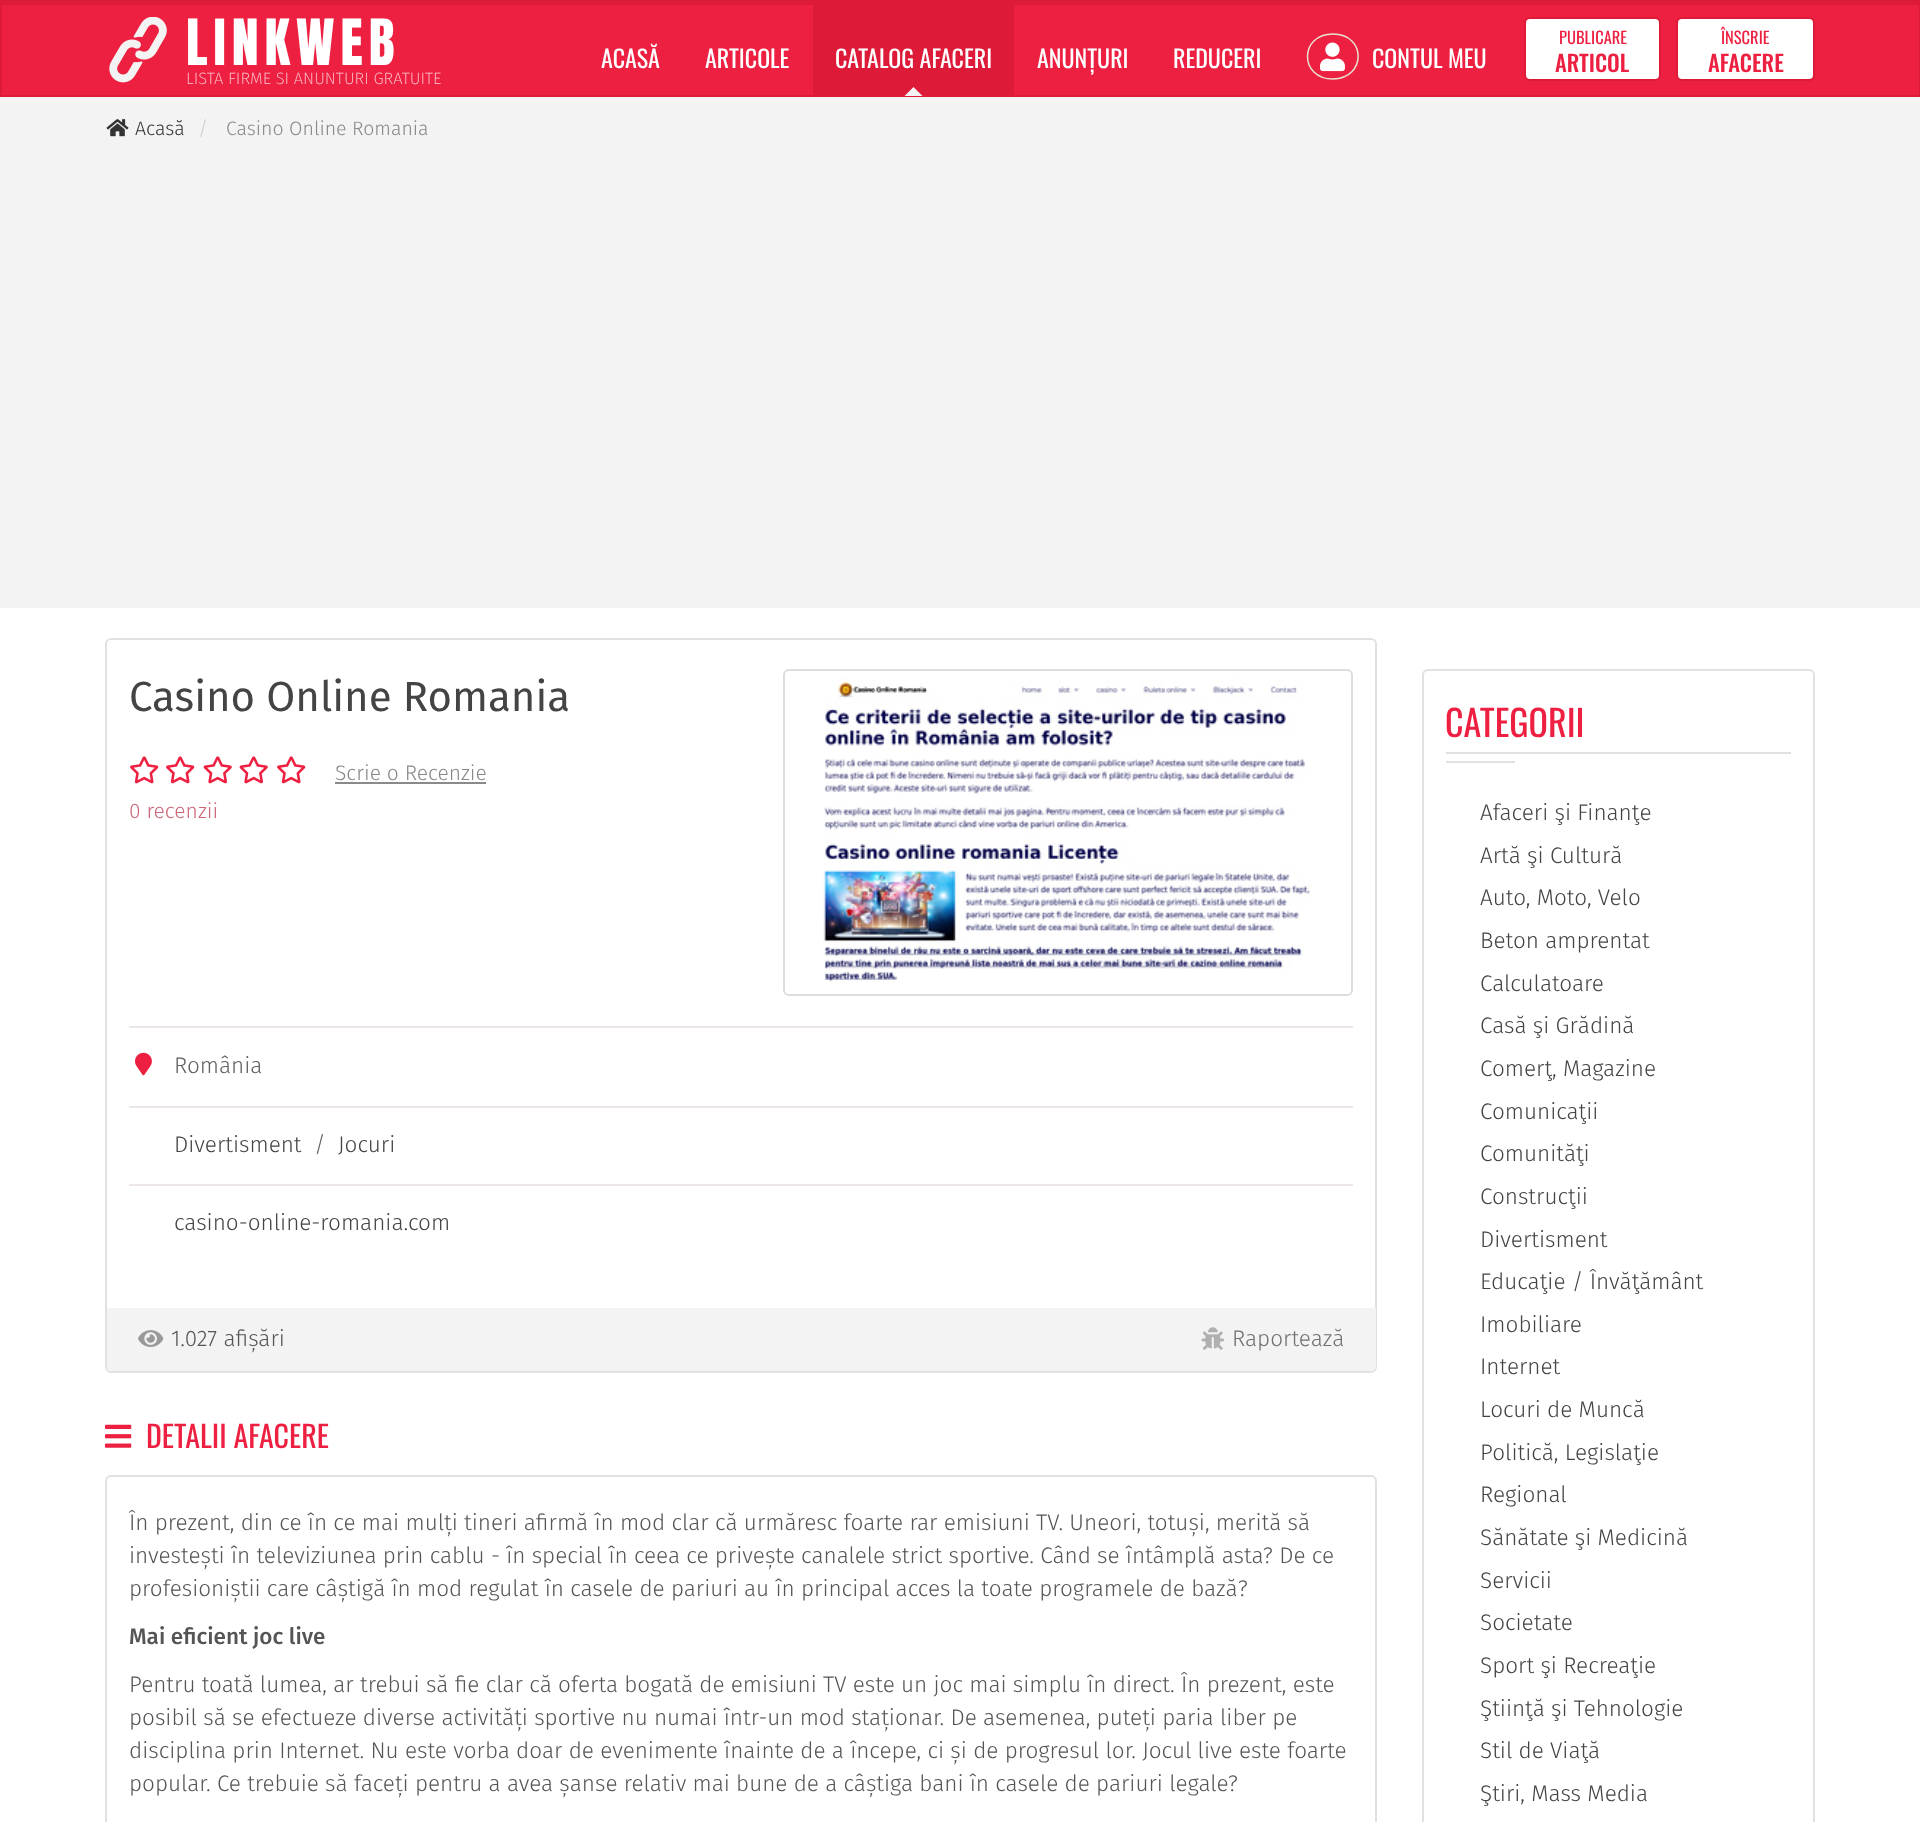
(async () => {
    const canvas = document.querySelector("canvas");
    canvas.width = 1920;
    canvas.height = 1822;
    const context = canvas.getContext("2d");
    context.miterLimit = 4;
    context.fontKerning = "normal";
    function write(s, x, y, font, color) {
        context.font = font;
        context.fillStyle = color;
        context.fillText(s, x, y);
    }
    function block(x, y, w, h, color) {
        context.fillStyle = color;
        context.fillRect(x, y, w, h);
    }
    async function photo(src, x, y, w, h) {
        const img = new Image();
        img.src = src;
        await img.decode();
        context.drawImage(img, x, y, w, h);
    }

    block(0, 0, 1920, 1822, "rgb(255, 255, 255)");
    block(2, 5, 1917, 90, "rgb(238, 32, 66)");
    block(0, 0, 1920, 5, "rgb(221, 26, 55)");
    block(1919, 0, 1, 96, "rgb(221, 26, 55)");
    block(0, 95, 1920, 2, "rgb(221, 26, 55)");
    block(0, 0, 2, 96, "rgb(221, 26, 55)");
    await photo("media/1.png", 109, 17, 58, 66);
    context.letterSpacing = "6px";
    write("LINKWEB", 186, 65, "54px Anton", "rgb(255, 255, 255)");
    context.letterSpacing = "0px";
    write("LISTA FIRME SI ANUNTURI GRATUITE", 186, 84, "200 16.5px Fira Sans", "rgb(251, 199, 208)");
    write("ACASĂ", 601, 68, "24px Oswald", "rgb(255, 255, 255)");
    write("ARTICOLE", 705, 68, "24px Oswald", "rgb(255, 255, 255)");
    block(813, 5, 201, 90, "rgb(221, 26, 55)");
    write("CATALOG AFACERI", 835, 68, "24px Oswald", "rgb(255, 255, 255)");
    context.fillStyle = "rgb(243, 243, 243)";
    context.beginPath();
    context.moveTo(922.5, 96);
    context.lineTo(904.5, 96);
    context.lineTo(913.5, 87);
    context.closePath();
    context.fill();
    write("ANUNȚURI", 1037, 68, "24px Oswald", "rgb(255, 255, 255)");
    write("REDUCERI", 1173, 68, "24px Oswald", "rgb(255, 255, 255)");
    context.beginPath();
    context.moveTo(1333, 34);
    context.bezierCurveTo(1366.5, 34, 1366.5, 78.5, 1333, 79);
    context.bezierCurveTo(1299, 79, 1299, 34, 1333, 34);
    context.closePath();
    context.strokeStyle = "rgb(231, 226, 207)";
    context.lineWidth = 1.5;
    context.stroke();
    await photo("media/2.png", 1320, 42, 25, 30);
    write("CONTUL MEU", 1372, 68, "24px Oswald", "rgb(255, 255, 255)");
    context.beginPath();
    context.roundRect(1525, 18, 135, 62, 5);
    context.fill();
    context.strokeStyle = "rgb(221, 26, 55)";
    context.lineWidth = 2;
    context.stroke();
    write("PUBLICARE", 1559, 44, "16.5px Oswald", "rgb(238, 32, 66)");
    write("ARTICOL", 1555, 72, "500 22.5px Oswald", "rgb(238, 32, 66)");
    context.fillStyle = "rgb(255, 255, 255)";
    context.beginPath();
    context.roundRect(1677, 18, 137, 62, 5);
    context.fill();
    context.stroke();
    write("ÎNSCRIE", 1721, 44, "16.5px Oswald", "rgb(238, 32, 66)");
    write("AFACERE", 1708, 72, "500 22.5px Oswald", "rgb(238, 32, 66)");
    block(0, 97, 1920, 511, "rgb(243, 243, 243)");
    await photo("media/3.png", 106, 119, 23, 18);
    write("Acasă", 135, 135, "300 19.5px Fira Sans", "rgb(51, 51, 51)");
    write("/", 198, 135, "300 19.5px Fira Sans", "rgb(204, 204, 204)");
    write("Casino Online Romania", 226, 135, "300 19.5px Fira Sans", "rgb(136, 136, 136)");
    context.beginPath();
    context.roundRect(106, 639, 1270, 733, 5);
    context.strokeStyle = "rgb(225, 225, 221)";
    context.stroke();
    write("Casino Online Romania", 129, 711, "42px Fira Sans", "rgb(68, 68, 68)");
    context.beginPath();
    context.roundRect(784, 670, 568, 325, 5);
    context.strokeStyle = "rgb(221, 221, 221)";
    context.stroke();
    await photo("media/4.png", 823, 678, 489, 304);
    await photo("media/5.png", 130, 756, 29, 28);
    await photo("media/5.png", 166, 756, 29, 28);
    await photo("media/6.png", 203, 756, 29, 28);
    await photo("media/6.png", 239, 756, 29, 28);
    await photo("media/5.png", 277, 756, 29, 28);
    write("Scrie o Recenzie", 335, 780, "300 21px Fira Sans", "rgb(136, 136, 136)");
    block(335, 782, 151, 2, "rgb(138, 138, 138)");
    write("0 recenzii", 129, 818, "300 21px Fira Sans", "rgb(204, 101, 118)");
    block(129, 1026, 1224, 2, "rgb(236, 230, 228)");
    await photo("media/7.png", 135, 1052, 17, 24);
    write("România", 174, 1073, "300 22.5px Fira Sans", "rgb(96, 96, 96)");
    block(129, 1106, 1224, 2, "rgb(236, 230, 228)");
    write("Divertisment", 174, 1152, "300 22.5px Fira Sans", "rgb(68, 68, 68)");
    write("/", 314, 1152, "300 22.5px Fira Sans", "rgb(96, 96, 96)");
    write("Jocuri", 338, 1152, "300 22.5px Fira Sans", "rgb(68, 68, 68)");
    block(129, 1184, 1224, 2, "rgb(236, 230, 228)");
    write("casino-online-romania.com", 174, 1230, "300 22.5px Fira Sans", "rgb(68, 68, 68)");
    context.fillStyle = "rgb(243, 243, 243)";
    context.beginPath();
    context.roundRect(107, 1308, 1269, 63, [0, 0, 5, 5]);
    context.fill();
    await photo("media/8.png", 138, 1330, 26, 17);
    write("1.027 afișări", 171, 1346, "300 22.5px Fira Sans", "rgb(85, 85, 85)");
    await photo("media/9.png", 1201, 1327, 23, 23);
    write("Raportează", 1232, 1346, "300 22.5px Fira Sans", "rgb(112, 112, 112)");
    await photo("media/10.png", 105, 1424, 27, 24);
    write("DETALII AFACERE", 146, 1448, "30px Oswald", "rgb(238, 32, 66)");
    context.beginPath();
    context.roundRect(106, 1476, 1270, 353, 5);
    context.strokeStyle = "rgb(225, 225, 221)";
    context.stroke();
    write("În prezent, din ce în ce mai mulți tineri afirmă în mod clar că urmăresc foarte rar emisiuni TV. Uneori, totuși, merită să", 129, 1530, "300 22.5px Fira Sans", "rgb(85, 85, 85)");
    write("investești în televiziunea prin cablu - în special în ceea ce privește canalele strict sportive. Când se întâmplă asta? De ce", 129, 1563, "300 22.5px Fira Sans", "rgb(85, 85, 85)");
    write("profesioniștii care câștigă în mod regulat în casele de pariuri au în principal acces la toate programele de bază?", 129, 1596, "300 22.5px Fira Sans", "rgb(85, 85, 85)");
    write("Mai eficient joc live", 129, 1644, "500 22.5px Fira Sans", "rgb(85, 85, 85)");
    write("Pentru toată lumea, ar trebui să fie clar că oferta bogată de emisiuni TV este un joc mai simplu în direct. În prezent, este", 129, 1692, "300 22.5px Fira Sans", "rgb(85, 85, 85)");
    write("posibil să se efectueze diverse activități sportive nu numai într-un mod staționar. De asemenea, puteți paria liber pe", 129, 1725, "300 22.5px Fira Sans", "rgb(85, 85, 85)");
    write("disciplina prin Internet. Nu este vorba doar de evenimente înainte de a începe, ci și de progresul lor. Jocul live este foarte", 129, 1758, "300 22.5px Fira Sans", "rgb(85, 85, 85)");
    write("popular. Ce trebuie să faceți pentru a avea șanse relativ mai bune de a câștiga bani în casele de pariuri legale?", 129, 1791, "300 22.5px Fira Sans", "rgb(85, 85, 85)");
    context.beginPath();
    context.roundRect(1423, 670, 391, 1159, 5);
    context.stroke();
    block(1446, 752, 345, 2, "rgb(225, 225, 221)");
    write("CATEGORII", 1445, 737, "36px Oswald", "rgb(238, 32, 66)");
    block(1446, 761, 69, 2, "rgb(225, 225, 221)");
    write("Afaceri şi Finanţe", 1480, 820, "300 22.5px Fira Sans", "rgb(68, 68, 68)");
    write("Artă şi Cultură", 1480, 863, "300 22.5px Fira Sans", "rgb(68, 68, 68)");
    write("Auto, Moto, Velo", 1480, 905, "300 22.5px Fira Sans", "rgb(68, 68, 68)");
    write("Beton amprentat", 1480, 948, "300 22.5px Fira Sans", "rgb(68, 68, 68)");
    write("Calculatoare", 1480, 991, "300 22.5px Fira Sans", "rgb(68, 68, 68)");
    write("Casă şi Grădină", 1480, 1033, "300 22.5px Fira Sans", "rgb(68, 68, 68)");
    write("Comerţ, Magazine", 1480, 1076, "300 22.5px Fira Sans", "rgb(68, 68, 68)");
    write("Comunicaţii", 1480, 1119, "300 22.5px Fira Sans", "rgb(68, 68, 68)");
    write("Comunităţi", 1480, 1161, "300 22.5px Fira Sans", "rgb(68, 68, 68)");
    write("Construcţii", 1480, 1204, "300 22.5px Fira Sans", "rgb(68, 68, 68)");
    write("Divertisment", 1480, 1247, "300 22.5px Fira Sans", "rgb(68, 68, 68)");
    write("Educaţie / Învăţământ", 1480, 1289, "300 22.5px Fira Sans", "rgb(68, 68, 68)");
    write("Imobiliare", 1480, 1332, "300 22.5px Fira Sans", "rgb(68, 68, 68)");
    write("Internet", 1480, 1374, "300 22.5px Fira Sans", "rgb(68, 68, 68)");
    write("Locuri de Muncă", 1480, 1417, "300 22.5px Fira Sans", "rgb(68, 68, 68)");
    write("Politică, Legislaţie", 1480, 1460, "300 22.5px Fira Sans", "rgb(68, 68, 68)");
    write("Regional", 1480, 1502, "300 22.5px Fira Sans", "rgb(68, 68, 68)");
    write("Sănătate şi Medicină", 1480, 1545, "300 22.5px Fira Sans", "rgb(68, 68, 68)");
    write("Servicii", 1480, 1588, "300 22.5px Fira Sans", "rgb(68, 68, 68)");
    write("Societate", 1480, 1630, "300 22.5px Fira Sans", "rgb(68, 68, 68)");
    write("Sport şi Recreaţie", 1480, 1673, "300 22.5px Fira Sans", "rgb(68, 68, 68)");
    write("Ştiinţă şi Tehnologie", 1480, 1716, "300 22.5px Fira Sans", "rgb(68, 68, 68)");
    write("Stil de Viaţă", 1480, 1758, "300 22.5px Fira Sans", "rgb(68, 68, 68)");
    write("Ştiri, Mass Media", 1480, 1801, "300 22.5px Fira Sans", "rgb(68, 68, 68)");
})();
